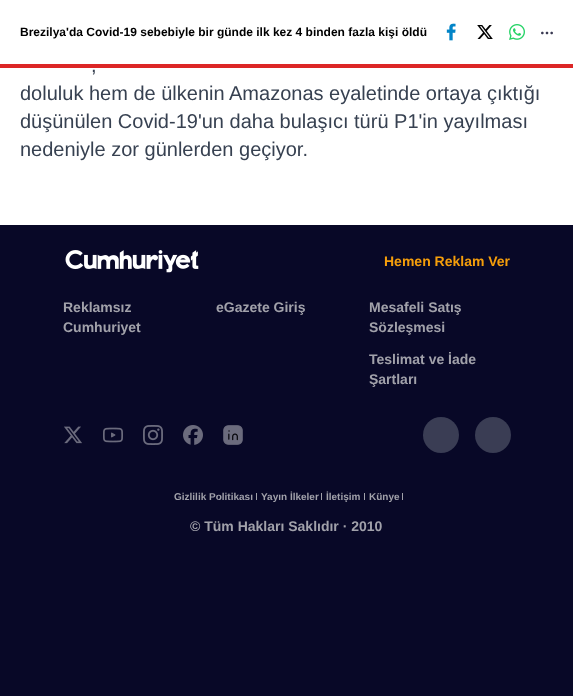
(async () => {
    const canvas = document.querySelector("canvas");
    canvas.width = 573;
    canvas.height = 696;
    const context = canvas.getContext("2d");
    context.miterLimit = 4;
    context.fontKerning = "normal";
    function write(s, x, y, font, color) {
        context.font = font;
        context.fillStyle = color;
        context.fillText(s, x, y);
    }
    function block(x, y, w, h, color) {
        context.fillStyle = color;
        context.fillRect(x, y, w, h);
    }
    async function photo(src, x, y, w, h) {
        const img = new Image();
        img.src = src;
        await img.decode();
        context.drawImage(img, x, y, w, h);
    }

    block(0, 0, 573, 696, "rgb(255, 255, 255)");
    write("Brezilya'da Covid-19 sebebiyle bir günde ilk kez 4 binden fazla kişi öldü", 20, 36, "bold 12px Liberation Sans", "rgb(0, 0, 0)");
    await photo("media/1.png", 446, 23, 10, 18);
    await photo("media/2.png", 477, 25, 16, 14);
    await photo("media/3.png", 509, 24, 16, 16);
    await photo("media/4.png", 541, 31, 12, 4);
    block(0, 64, 573, 4, "rgb(220, 38, 38)");
    write(",", 91, 72, "20px Liberation Sans", "rgb(55, 65, 81)");
    write("doluluk hem de ülkenin Amazonas eyaletinde ortaya çıktığı", 20, 100, "20px Liberation Sans", "rgb(55, 65, 81)");
    write("düşünülen Covid-19'un daha bulaşıcı türü P1'in yayılması", 20, 128, "20px Liberation Sans", "rgb(55, 65, 81)");
    write("nedeniyle zor günlerden geçiyor.", 20, 156, "20px Liberation Sans", "rgb(55, 65, 81)");
    block(0, 225, 573, 471, "rgb(8, 8, 39)");
    await photo("media/5.png", 65, 250, 134, 23);
    write("Hemen Reklam Ver", 384, 266, "bold 14px Liberation Sans", "rgb(245, 158, 11)");
    write("Reklamsız", 63, 312, "bold 14px Liberation Sans", "rgb(161, 161, 170)");
    write("Cumhuriyet", 63, 332, "bold 14px Liberation Sans", "rgb(161, 161, 170)");
    write("eGazete Giriş", 216, 312, "bold 14px Liberation Sans", "rgb(161, 161, 170)");
    write("Mesafeli Satış", 369, 312, "bold 14px Liberation Sans", "rgb(161, 161, 170)");
    write("Sözleşmesi", 369, 332, "bold 14px Liberation Sans", "rgb(161, 161, 170)");
    write("Teslimat ve İade", 369, 364, "bold 14px Liberation Sans", "rgb(161, 161, 170)");
    write("Şartları", 369, 384, "bold 14px Liberation Sans", "rgb(161, 161, 170)");
    await photo("media/6.png", 64, 426, 18, 18);
    await photo("media/7.png", 103, 427, 20, 16);
    await photo("media/8.png", 143, 425, 20, 20);
    await photo("media/9.png", 183, 425, 20, 20);
    await photo("media/10.png", 223, 425, 20, 20);
    context.fillStyle = "rgb(58, 61, 84)";
    context.beginPath();
    context.arc(441, 435, 18, 0, Math.PI * 2);
    context.fill();
    context.beginPath();
    context.arc(493, 435, 18, 0, Math.PI * 2);
    context.fill();
    write("Gizlilik Politikası", 174, 500, "bold 10px Liberation Sans", "rgb(161, 161, 170)");
    block(256, 493, 1, 7, "rgb(161, 161, 170)");
    write("Yayın İlkeler", 261, 500, "bold 10px Liberation Sans", "rgb(161, 161, 170)");
    block(321, 493, 1, 7, "rgb(161, 161, 170)");
    write("İletişim", 326, 500, "bold 10px Liberation Sans", "rgb(161, 161, 170)");
    block(364, 493, 1, 7, "rgb(161, 161, 170)");
    write("Künye", 369, 500, "bold 10px Liberation Sans", "rgb(161, 161, 170)");
    block(402, 493, 1, 7, "rgb(161, 161, 170)");
    write("© Tüm Hakları Saklıdır · 2010", 190, 531, "bold 14px Liberation Sans", "rgb(161, 161, 170)");
})();
